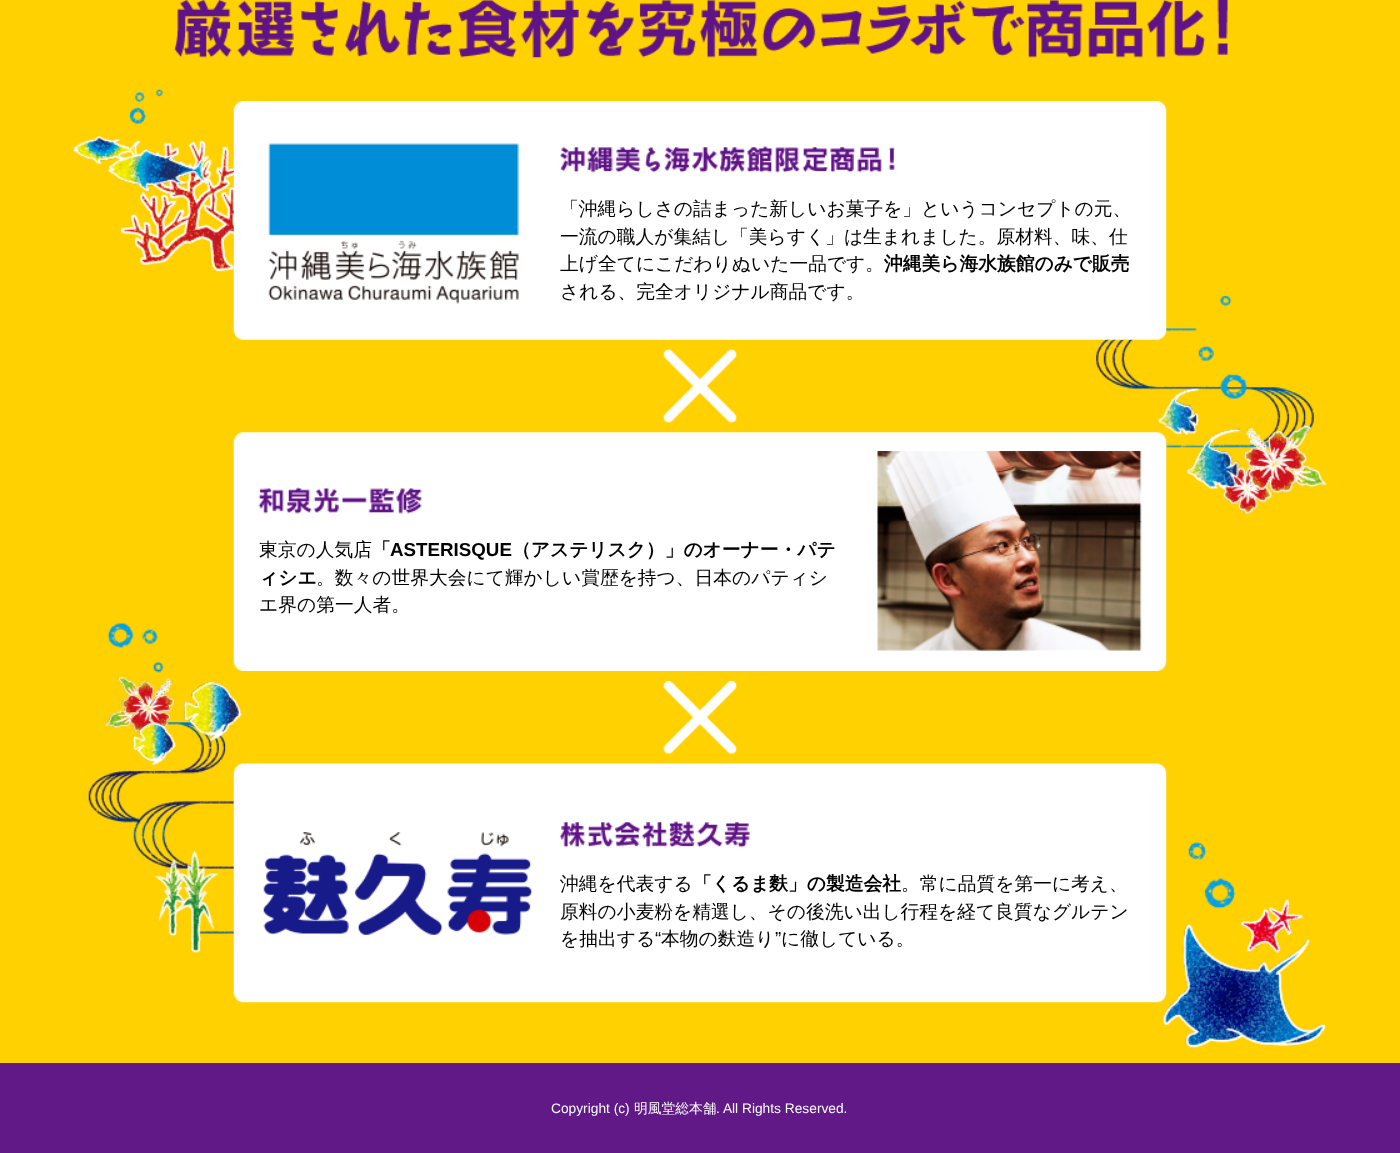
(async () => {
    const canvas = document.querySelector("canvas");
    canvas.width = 1400;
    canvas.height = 1153;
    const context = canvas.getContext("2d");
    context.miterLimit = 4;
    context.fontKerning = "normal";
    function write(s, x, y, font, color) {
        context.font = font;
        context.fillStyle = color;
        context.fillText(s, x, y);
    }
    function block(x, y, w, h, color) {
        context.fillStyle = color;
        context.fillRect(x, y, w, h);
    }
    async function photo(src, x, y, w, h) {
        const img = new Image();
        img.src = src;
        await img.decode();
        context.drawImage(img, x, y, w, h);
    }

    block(0, 0, 1400, 1153, "rgb(255, 209, 0)");
    await photo("media/1.png", 73, 89, 1254, 959);
    await photo("media/2.png", 174, 0, 1054, 58);
    await photo("media/3.png", 233, 101, 934, 239);
    await photo("media/4.png", 268, 143, 251, 161);
    await photo("media/5.png", 560, 146, 335, 27);
    write("「沖縄らしさの詰まった新しいお菓子を」というコンセプトの元、", 560, 215, "500 18.75px WenQuanYi Zen Hei", "rgb(0, 0, 0)");
    write("一流の職人が集結し「美らすく」は生まれました。原材料、味、仕", 560, 243, "500 18.75px WenQuanYi Zen Hei", "rgb(0, 0, 0)");
    write("上げ全てにこだわりぬいた一品です。", 560, 270, "500 18.75px WenQuanYi Zen Hei", "rgb(0, 0, 0)");
    write("沖縄美ら海水族館のみで販売", 884, 270, "bold 18.75px WenQuanYi Zen Hei", "rgb(0, 0, 0)");
    write("される、完全オリジナル商品です。", 560, 298, "500 18.75px WenQuanYi Zen Hei", "rgb(0, 0, 0)");
    await photo("media/6.png", 663, 349, 74, 74);
    await photo("media/7.png", 233, 432, 934, 239);
    await photo("media/8.png", 258, 487, 164, 27);
    write("東京の人気店", 259, 556, "500 18.75px WenQuanYi Zen Hei", "rgb(0, 0, 0)");
    write("「", 372, 556, "bold 18.75px WenQuanYi Zen Hei", "rgb(0, 0, 0)");
    write("ASTERISQUE", 390, 556, "bold 18.75px Liberation Sans", "rgb(0, 0, 0)");
    write("（アステリスク）」のオーナー・パテ", 512, 556, "bold 18.75px WenQuanYi Zen Hei", "rgb(0, 0, 0)");
    write("ィシエ", 259, 584, "bold 18.75px WenQuanYi Zen Hei", "rgb(0, 0, 0)");
    write("。数々の世界大会にて輝かしい賞歴を持つ、日本のパティシ", 316, 584, "500 18.75px WenQuanYi Zen Hei", "rgb(0, 0, 0)");
    write("エ界の第一人者。", 259, 611, "500 18.75px WenQuanYi Zen Hei", "rgb(0, 0, 0)");
    await photo("media/9.png", 877, 451, 265, 200);
    await photo("media/10.png", 663, 681, 74, 73);
    await photo("media/11.png", 233, 763, 934, 240);
    await photo("media/12.png", 263, 832, 269, 103);
    await photo("media/13.png", 560, 821, 190, 27);
    write("沖縄を代表する", 560, 890, "500 18.75px WenQuanYi Zen Hei", "rgb(0, 0, 0)");
    write("「くるま麩」の製造会社", 693, 890, "bold 18.75px WenQuanYi Zen Hei", "rgb(0, 0, 0)");
    write("。常に品質を第一に考え、", 901, 890, "500 18.75px WenQuanYi Zen Hei", "rgb(0, 0, 0)");
    write("原料の小麦粉を精選し、その後洗い出し行程を経て良質なグルテン", 560, 918, "500 18.75px WenQuanYi Zen Hei", "rgb(0, 0, 0)");
    write("を抽出する", 560, 945, "500 18.75px WenQuanYi Zen Hei", "rgb(0, 0, 0)");
    write("“", 655, 945, "18.75px Liberation Sans", "rgb(0, 0, 0)");
    write("本物の麩造り", 661, 945, "500 18.75px WenQuanYi Zen Hei", "rgb(0, 0, 0)");
    write("”", 775, 945, "18.75px Liberation Sans", "rgb(0, 0, 0)");
    write("に徹している。", 781, 945, "500 18.75px WenQuanYi Zen Hei", "rgb(0, 0, 0)");
    block(0, 1063, 1400, 90, "rgb(96, 25, 134)");
    write("Copyright (c)", 551, 1113, "13.75px Liberation Sans", "rgb(255, 255, 255)");
    write("明風堂総本舗", 634, 1113, "500 13.75px WenQuanYi Zen Hei", "rgb(255, 255, 255)");
    write(". All Rights Reserved.", 716, 1113, "13.75px Liberation Sans", "rgb(255, 255, 255)");
})();
